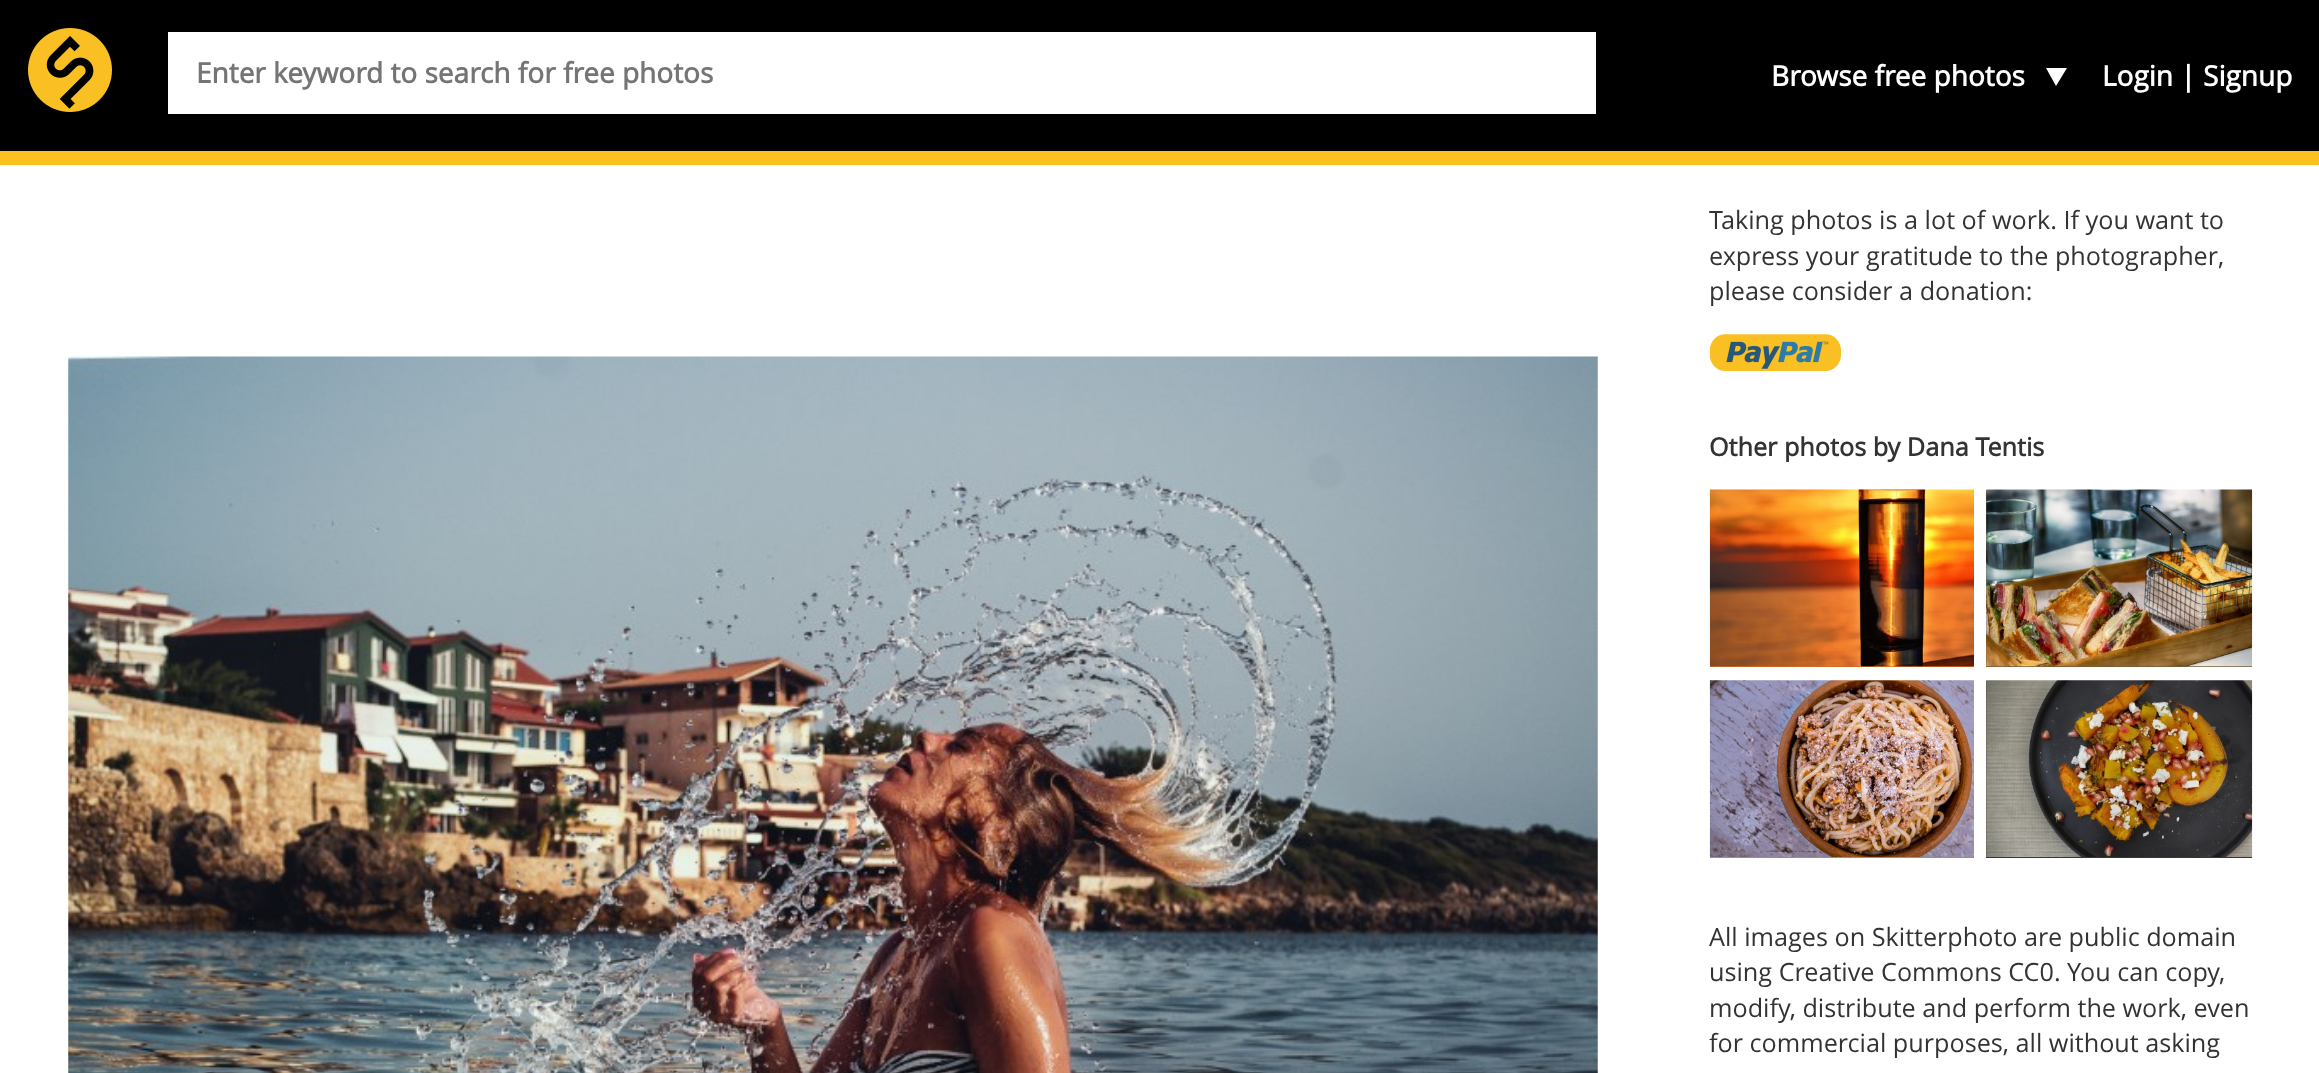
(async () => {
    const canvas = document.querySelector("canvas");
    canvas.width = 2319;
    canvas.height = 1073;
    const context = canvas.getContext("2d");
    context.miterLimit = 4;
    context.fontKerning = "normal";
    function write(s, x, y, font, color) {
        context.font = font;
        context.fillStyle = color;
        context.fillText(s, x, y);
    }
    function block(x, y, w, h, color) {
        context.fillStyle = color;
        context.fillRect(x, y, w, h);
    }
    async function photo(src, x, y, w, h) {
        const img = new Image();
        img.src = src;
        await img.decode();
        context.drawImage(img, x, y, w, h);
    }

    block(0, 0, 2319, 1073, "rgb(255, 255, 255)");
    block(0, 0, 2319, 151, "rgb(0, 0, 0)");
    block(0, 151, 2319, 14, "rgb(252, 192, 33)");
    await photo("media/1.png", 28, 28, 84, 84);
    block(168, 32, 1428, 82, "rgb(255, 255, 255)");
    write("Enter keyword to search for free photos", 196, 83, "bold 28px Open Sans", "rgb(117, 117, 117)");
    write("Browse free photos", 1771, 86, "bold 28px Open Sans", "rgb(255, 255, 255)");
    context.beginPath();
    context.moveTo(2046, 68);
    context.lineTo(2067, 68);
    context.lineTo(2056, 86);
    context.closePath();
    context.fill();
    write("Login | Signup", 2102, 86, "bold 28px Open Sans", "rgb(255, 255, 255)");
    await photo("media/2.png", 68, 356, 1530, 717);
    write("Taking photos is a lot of work. If you want to", 1709, 229, "25.2px Open Sans", "rgb(51, 51, 51)");
    write("express your gratitude to the photographer,", 1709, 265, "25.2px Open Sans", "rgb(51, 51, 51)");
    write("please consider a donation:", 1709, 300, "25.2px Open Sans", "rgb(51, 51, 51)");
    await photo("media/3.png", 1710, 334, 131, 37);
    write("Other photos by Dana Tentis", 1709, 456, "bold 25.2px Open Sans", "rgb(51, 51, 51)");
    block(1710, 666, 264, 1, "rgb(207, 109, 35)");
    await photo("media/4.png", 1709, 489, 265, 178);
    block(1986, 490, 266, 177, "rgb(119, 93, 60)");
    await photo("media/5.png", 1986, 489, 267, 178);
    block(1710, 857, 264, 1, "rgb(153, 138, 159)");
    await photo("media/6.png", 1709, 680, 265, 177);
    block(1986, 681, 266, 177, "rgb(59, 54, 52)");
    await photo("media/7.png", 1986, 680, 267, 177);
    write("All images on Skitterphoto are public domain", 1709, 946, "25.2px Open Sans", "rgb(51, 51, 51)");
    write("using Creative Commons CC0. You can copy,", 1709, 981, "25.2px Open Sans", "rgb(51, 51, 51)");
    write("modify, distribute and perform the work, even", 1709, 1017, "25.2px Open Sans", "rgb(51, 51, 51)");
    write("for commercial purposes, all without asking", 1709, 1052, "25.2px Open Sans", "rgb(51, 51, 51)");
})();
